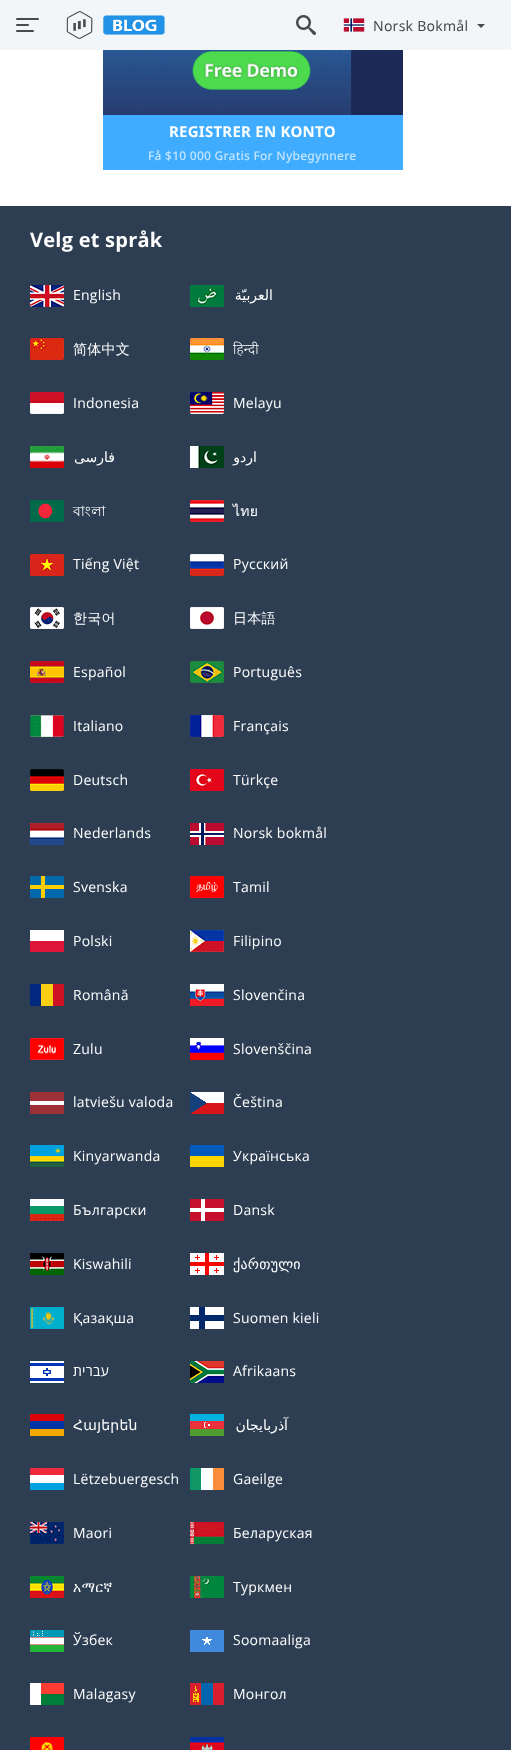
(async () => {
    const canvas = document.querySelector("canvas");
    canvas.width = 511;
    canvas.height = 1750;
    const context = canvas.getContext("2d");
    context.miterLimit = 4;
    context.fontKerning = "normal";
    function write(s, x, y, font, color) {
        context.font = font;
        context.fillStyle = color;
        context.fillText(s, x, y);
    }
    function block(x, y, w, h, color) {
        context.fillStyle = color;
        context.fillRect(x, y, w, h);
    }
    async function photo(src, x, y, w, h) {
        const img = new Image();
        img.src = src;
        await img.decode();
        context.drawImage(img, x, y, w, h);
    }

    block(0, 0, 511, 1750, "rgb(255, 255, 255)");
    block(0, 0, 511, 50, "rgb(243, 246, 249)");
    await photo("media/1.png", 16, 18, 23, 14);
    await photo("media/2.png", 66, 11, 99, 28);
    await photo("media/3.png", 296, 15, 20, 20);
    await photo("media/4.png", 343, 18, 22, 14);
    context.letterSpacing = "0.25px";
    write("Norsk Bokmål", 373, 31, "14px Noto Sans", "rgb(74, 74, 74)");
    context.beginPath();
    context.moveTo(477, 24);
    context.lineTo(485, 24);
    context.lineTo(481, 28);
    context.closePath();
    context.fill();
    await photo("media/5.png", 103, 50, 300, 65);
    block(103, 115, 300, 55, "rgb(63, 172, 255)");
    write("REGISTRER EN KONTO", 169, 137, "bold 15px Noto Sans", "rgb(255, 255, 255)");
    write("Få $10 000 Gratis For Nybegynnere", 148, 160, "500 12px Noto Sans", "rgb(197, 230, 255)");
    block(0, 206, 511, 1544, "rgb(45, 62, 82)");
    write("Velg et språk", 30, 247, "bold 20px Open Sans", "rgb(255, 255, 255)");
    await photo("media/6.png", 30, 285, 34, 22);
    write("English", 73, 300, "14px Open Sans", "rgb(255, 255, 255)");
    await photo("media/7.png", 190, 285, 34, 22);
    context.direction = "rtl";
    write("العربيّة", 273, 300, "14px DejaVu Sans", "rgb(255, 255, 255)");
    await photo("media/8.png", 30, 338, 34, 22);
    context.direction = "ltr";
    write("简体中文", 73, 354, "500 14px WenQuanYi Zen Hei", "rgb(255, 255, 255)");
    await photo("media/9.png", 190, 338, 34, 22);
    write("हिन्दी", 233, 354, "300 14px Noto Sans", "rgb(255, 255, 255)");
    await photo("media/10.png", 30, 392, 34, 22);
    write("Indonesia", 73, 408, "14px Open Sans", "rgb(255, 255, 255)");
    await photo("media/11.png", 190, 392, 34, 22);
    write("Melayu", 233, 408, "14px Open Sans", "rgb(255, 255, 255)");
    await photo("media/12.png", 30, 446, 34, 22);
    context.direction = "rtl";
    write("فارسی", 115, 462, "14px DejaVu Sans", "rgb(255, 255, 255)");
    await photo("media/13.png", 190, 446, 34, 22);
    write("اردو", 257, 462, "14px DejaVu Sans", "rgb(255, 255, 255)");
    await photo("media/14.png", 30, 500, 34, 22);
    context.direction = "ltr";
    write("বাংলা", 73, 516, "14px Lohit Bengali", "rgb(255, 255, 255)");
    await photo("media/15.png", 190, 500, 34, 22);
    write("ไทย", 233, 516, "14px Loma", "rgb(255, 255, 255)");
    await photo("media/16.png", 30, 554, 34, 22);
    write("Tiếng Việt", 73, 569, "14px Open Sans", "rgb(255, 255, 255)");
    await photo("media/17.png", 190, 554, 34, 22);
    write("Русский", 233, 569, "14px Open Sans", "rgb(255, 255, 255)");
    await photo("media/18.png", 30, 607, 34, 22);
    write("한국어", 73, 623, "500 14px WenQuanYi Zen Hei", "rgb(255, 255, 255)");
    await photo("media/19.png", 190, 607, 34, 22);
    write("日本語", 233, 623, "500 14px WenQuanYi Zen Hei", "rgb(255, 255, 255)");
    await photo("media/20.png", 30, 661, 34, 22);
    write("Español", 73, 677, "14px Open Sans", "rgb(255, 255, 255)");
    await photo("media/21.png", 190, 661, 34, 22);
    write("Português", 233, 677, "14px Open Sans", "rgb(255, 255, 255)");
    await photo("media/22.png", 30, 715, 34, 22);
    write("Italiano", 73, 731, "14px Open Sans", "rgb(255, 255, 255)");
    await photo("media/23.png", 190, 715, 34, 22);
    write("Français", 233, 731, "14px Open Sans", "rgb(255, 255, 255)");
    await photo("media/24.png", 30, 769, 34, 22);
    write("Deutsch", 73, 785, "14px Open Sans", "rgb(255, 255, 255)");
    await photo("media/25.png", 190, 769, 34, 22);
    write("Türkçe", 233, 785, "14px Open Sans", "rgb(255, 255, 255)");
    await photo("media/26.png", 30, 823, 34, 22);
    write("Nederlands", 73, 838, "14px Open Sans", "rgb(255, 255, 255)");
    await photo("media/27.png", 190, 823, 34, 22);
    write("Norsk bokmål", 233, 838, "14px Open Sans", "rgb(255, 255, 255)");
    await photo("media/28.png", 30, 876, 34, 22);
    write("Svenska", 73, 892, "14px Open Sans", "rgb(255, 255, 255)");
    await photo("media/29.png", 190, 876, 34, 22);
    write("Tamil", 233, 892, "14px Open Sans", "rgb(255, 255, 255)");
    await photo("media/30.png", 30, 930, 34, 22);
    write("Polski", 73, 946, "14px Open Sans", "rgb(255, 255, 255)");
    await photo("media/31.png", 190, 930, 34, 22);
    write("Filipino", 233, 946, "14px Open Sans", "rgb(255, 255, 255)");
    await photo("media/32.png", 30, 984, 34, 22);
    write("Română", 73, 1000, "14px Open Sans", "rgb(255, 255, 255)");
    await photo("media/33.png", 190, 984, 34, 22);
    write("Slovenčina", 233, 1000, "14px Open Sans", "rgb(255, 255, 255)");
    await photo("media/34.png", 30, 1038, 34, 22);
    write("Zulu", 73, 1054, "14px Open Sans", "rgb(255, 255, 255)");
    await photo("media/35.png", 190, 1038, 34, 22);
    write("Slovenščina", 233, 1054, "14px Open Sans", "rgb(255, 255, 255)");
    await photo("media/36.png", 30, 1092, 34, 22);
    write("latviešu valoda", 73, 1107, "14px Open Sans", "rgb(255, 255, 255)");
    await photo("media/37.png", 190, 1092, 34, 22);
    write("Čeština", 233, 1107, "14px Open Sans", "rgb(255, 255, 255)");
    await photo("media/38.png", 30, 1145, 34, 22);
    write("Kinyarwanda", 73, 1161, "14px Open Sans", "rgb(255, 255, 255)");
    await photo("media/39.png", 190, 1145, 34, 22);
    write("Українська", 233, 1161, "14px Open Sans", "rgb(255, 255, 255)");
    await photo("media/40.png", 30, 1199, 34, 22);
    write("Български", 73, 1215, "14px Open Sans", "rgb(255, 255, 255)");
    await photo("media/41.png", 190, 1199, 34, 22);
    write("Dansk", 233, 1215, "14px Open Sans", "rgb(255, 255, 255)");
    await photo("media/42.png", 30, 1253, 34, 22);
    write("Kiswahili", 73, 1269, "14px Open Sans", "rgb(255, 255, 255)");
    await photo("media/43.png", 190, 1253, 34, 22);
    write("ქართული", 233, 1269, "14px DejaVu Sans", "rgb(255, 255, 255)");
    await photo("media/44.png", 30, 1307, 34, 22);
    write("Қазақша", 73, 1323, "14px Open Sans", "rgb(255, 255, 255)");
    await photo("media/45.png", 190, 1307, 34, 22);
    write("Suomen kieli", 233, 1323, "14px Open Sans", "rgb(255, 255, 255)");
    await photo("media/46.png", 30, 1361, 34, 22);
    context.direction = "rtl";
    write("עברית", 109, 1376, "14px Open Sans", "rgb(255, 255, 255)");
    await photo("media/47.png", 190, 1361, 34, 22);
    context.direction = "ltr";
    write("Afrikaans", 233, 1376, "14px Open Sans", "rgb(255, 255, 255)");
    await photo("media/48.png", 30, 1414, 34, 22);
    write("Հայերեն", 73, 1430, "14px DejaVu Sans", "rgb(255, 255, 255)");
    await photo("media/49.png", 190, 1414, 34, 22);
    context.direction = "rtl";
    write("آذربايجان", 288, 1430, "14px DejaVu Sans", "rgb(255, 255, 255)");
    await photo("media/50.png", 30, 1468, 34, 22);
    context.direction = "ltr";
    write("Lëtzebuergesch", 73, 1484, "14px Open Sans", "rgb(255, 255, 255)");
    await photo("media/51.png", 190, 1468, 34, 22);
    write("Gaeilge", 233, 1484, "14px Open Sans", "rgb(255, 255, 255)");
    await photo("media/52.png", 30, 1522, 34, 22);
    write("Maori", 73, 1538, "14px Open Sans", "rgb(255, 255, 255)");
    await photo("media/53.png", 190, 1522, 34, 22);
    write("Беларуская", 233, 1538, "14px Open Sans", "rgb(255, 255, 255)");
    await photo("media/54.png", 30, 1576, 34, 22);
    write("አማርኛ", 73, 1592, "14px FreeSerif", "rgb(255, 255, 255)");
    await photo("media/55.png", 190, 1576, 34, 22);
    write("Туркмен", 233, 1592, "14px Open Sans", "rgb(255, 255, 255)");
    await photo("media/56.png", 30, 1630, 34, 22);
    write("Ўзбек", 73, 1645, "14px Open Sans", "rgb(255, 255, 255)");
    await photo("media/57.png", 190, 1630, 34, 22);
    write("Soomaaliga", 233, 1645, "14px Open Sans", "rgb(255, 255, 255)");
    await photo("media/58.png", 30, 1683, 34, 22);
    write("Malagasy", 73, 1699, "14px Open Sans", "rgb(255, 255, 255)");
    await photo("media/59.png", 190, 1683, 34, 22);
    write("Монгол", 233, 1699, "14px Open Sans", "rgb(255, 255, 255)");
    await photo("media/60.png", 30, 1737, 34, 13);
    await photo("media/61.png", 190, 1737, 34, 13);
})();
